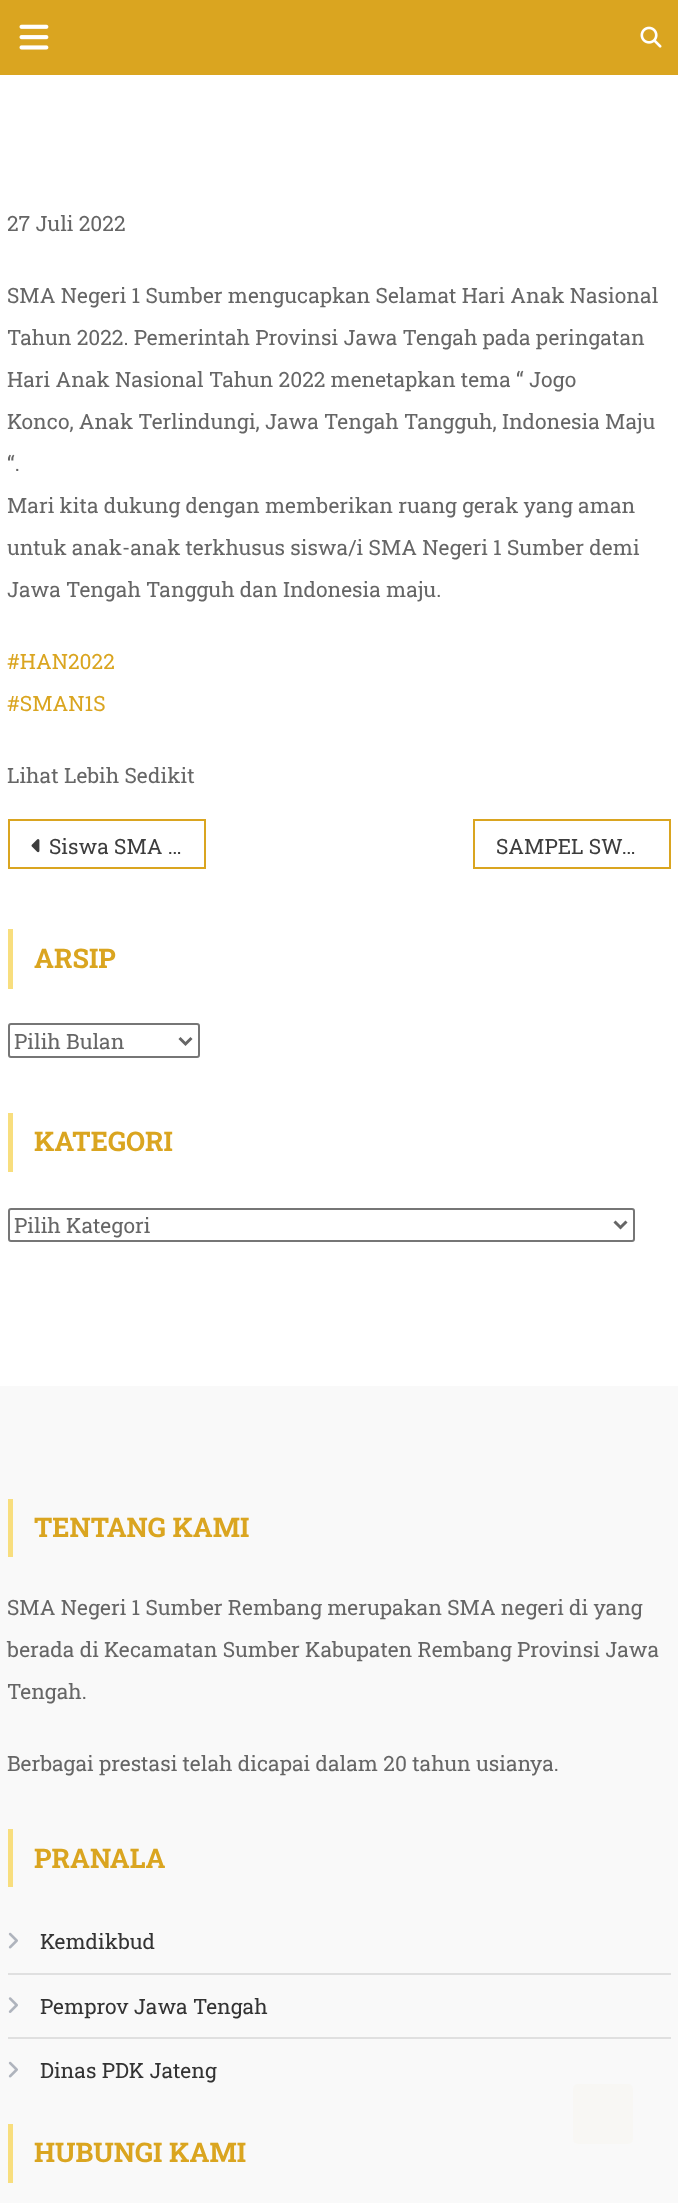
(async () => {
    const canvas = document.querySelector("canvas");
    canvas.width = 678;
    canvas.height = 2203;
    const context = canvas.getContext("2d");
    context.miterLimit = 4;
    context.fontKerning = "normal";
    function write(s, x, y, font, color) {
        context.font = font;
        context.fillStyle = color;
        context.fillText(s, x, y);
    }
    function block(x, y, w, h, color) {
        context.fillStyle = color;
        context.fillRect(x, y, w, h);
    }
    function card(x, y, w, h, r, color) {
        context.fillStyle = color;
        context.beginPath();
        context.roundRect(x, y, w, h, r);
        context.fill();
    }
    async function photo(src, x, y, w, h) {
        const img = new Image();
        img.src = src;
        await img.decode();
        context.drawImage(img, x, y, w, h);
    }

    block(0, 0, 678, 2203, "rgb(255, 255, 255)");
    block(0, 0, 678, 75, "rgb(218, 165, 32)");
    await photo("media/1.png", 19, 24, 30, 26);
    await photo("media/2.png", 640, 26, 22, 22);
    write("27 Juli 2022", 7, 231, "21px Roboto Slab", "rgb(102, 102, 102)");
    write("SMA Negeri 1 Sumber mengucapkan Selamat Hari Anak Nasional", 7, 303, "21px Roboto Slab", "rgb(102, 102, 102)");
    write("Tahun 2022. Pemerintah Provinsi Jawa Tengah pada peringatan", 7, 345, "21px Roboto Slab", "rgb(102, 102, 102)");
    write("Hari Anak Nasional Tahun 2022 menetapkan tema “ Jogo", 7, 387, "21px Roboto Slab", "rgb(102, 102, 102)");
    write("Konco, Anak Terlindungi, Jawa Tengah Tangguh, Indonesia Maju", 7, 429, "21px Roboto Slab", "rgb(102, 102, 102)");
    write("“.", 7, 471, "21px Roboto Slab", "rgb(102, 102, 102)");
    write("Mari kita dukung dengan memberikan ruang gerak yang aman", 7, 513, "21px Roboto Slab", "rgb(102, 102, 102)");
    write("untuk anak-anak terkhusus siswa/i SMA Negeri 1 Sumber demi", 7, 555, "21px Roboto Slab", "rgb(102, 102, 102)");
    write("Jawa Tengah Tangguh dan Indonesia maju.", 7, 597, "21px Roboto Slab", "rgb(102, 102, 102)");
    write("#HAN2022", 7, 669, "21px Roboto Slab", "rgb(218, 165, 32)");
    write("#SMAN1S", 7, 711, "21px Roboto Slab", "rgb(218, 165, 32)");
    write("Lihat Lebih Sedikit", 7, 783, "21px Roboto Slab", "rgb(102, 102, 102)");
    context.strokeStyle = "rgb(218, 165, 32)";
    context.lineWidth = 2;
    context.strokeRect(9, 820, 196, 48);
    await photo("media/3.png", 31, 839, 9, 14);
    write("Siswa SMA …", 49, 854, "21px Roboto Slab", "rgb(61, 61, 61)");
    context.strokeRect(474, 820, 196, 48);
    write("SAMPEL SW…", 496, 854, "21px Roboto Slab", "rgb(61, 61, 61)");
    block(8, 929, 5, 60, "rgb(248, 222, 126)");
    write("ARSIP", 34, 968, "bold 27px Roboto Slab", "rgb(218, 165, 32)");
    context.beginPath();
    context.roundRect(9, 1024, 190, 33, 2);
    context.strokeStyle = "rgb(118, 118, 118)";
    context.stroke();
    context.beginPath();
    context.moveTo(179.5, 1038);
    context.lineTo(185.5, 1044);
    context.lineTo(191.5, 1038);
    context.strokeStyle = "rgb(102, 102, 102)";
    context.lineWidth = 3;
    context.stroke();
    write("Pilih Bulan", 14, 1049, "21px Roboto Slab", "rgb(102, 102, 102)");
    block(8, 1113, 5, 59, "rgb(248, 222, 126)");
    write("KATEGORI", 34, 1151, "bold 27px Roboto Slab", "rgb(218, 165, 32)");
    context.beginPath();
    context.roundRect(9, 1209, 625, 32, 2);
    context.strokeStyle = "rgb(118, 118, 118)";
    context.lineWidth = 2;
    context.stroke();
    context.beginPath();
    context.moveTo(614.5, 1221.5);
    context.lineTo(620.5, 1227.5);
    context.lineTo(626.5, 1221.5);
    context.strokeStyle = "rgb(102, 102, 102)";
    context.lineWidth = 3;
    context.stroke();
    write("Pilih Kategori", 14, 1233, "21px Roboto Slab", "rgb(102, 102, 102)");
    block(0, 1386, 678, 817, "rgb(249, 249, 249)");
    block(8, 1499, 5, 58, "rgb(248, 222, 126)");
    write("TENTANG KAMI", 34, 1537, "bold 27px Roboto Slab", "rgb(218, 165, 32)");
    write("SMA Negeri 1 Sumber Rembang merupakan SMA negeri di yang", 7, 1615, "21px Roboto Slab", "rgb(102, 102, 102)");
    write("berada di Kecamatan Sumber Kabupaten Rembang Provinsi Jawa", 7, 1657, "21px Roboto Slab", "rgb(102, 102, 102)");
    write("Tengah.", 7, 1699, "21px Roboto Slab", "rgb(102, 102, 102)");
    write("Berbagai prestasi telah dicapai dalam 20 tahun usianya.", 7, 1771, "21px Roboto Slab", "rgb(102, 102, 102)");
    block(8, 1829, 5, 58, "rgb(248, 222, 126)");
    write("PRANALA", 34, 1868, "bold 27px Roboto Slab", "rgb(218, 165, 32)");
    block(8, 1973, 663, 2, "rgb(224, 224, 224)");
    await photo("media/4.png", 8, 1932, 10, 17);
    write("Kemdikbud", 40, 1949, "21px Roboto Slab", "rgb(51, 51, 51)");
    block(8, 2037, 663, 2, "rgb(224, 224, 224)");
    await photo("media/5.png", 8, 1997, 10, 16);
    write("Pemprov Jawa Tengah", 40, 2014, "21px Roboto Slab", "rgb(51, 51, 51)");
    await photo("media/4.png", 8, 2061, 10, 17);
    write("Dinas PDK Jateng", 40, 2078, "21px Roboto Slab", "rgb(51, 51, 51)");
    block(8, 2124, 5, 59, "rgb(248, 222, 126)");
    write("HUBUNGI KAMI", 34, 2162, "bold 27px Roboto Slab", "rgb(218, 165, 32)");
    card(573, 2084, 60, 60, 5, "rgb(248, 247, 244)");
})();
